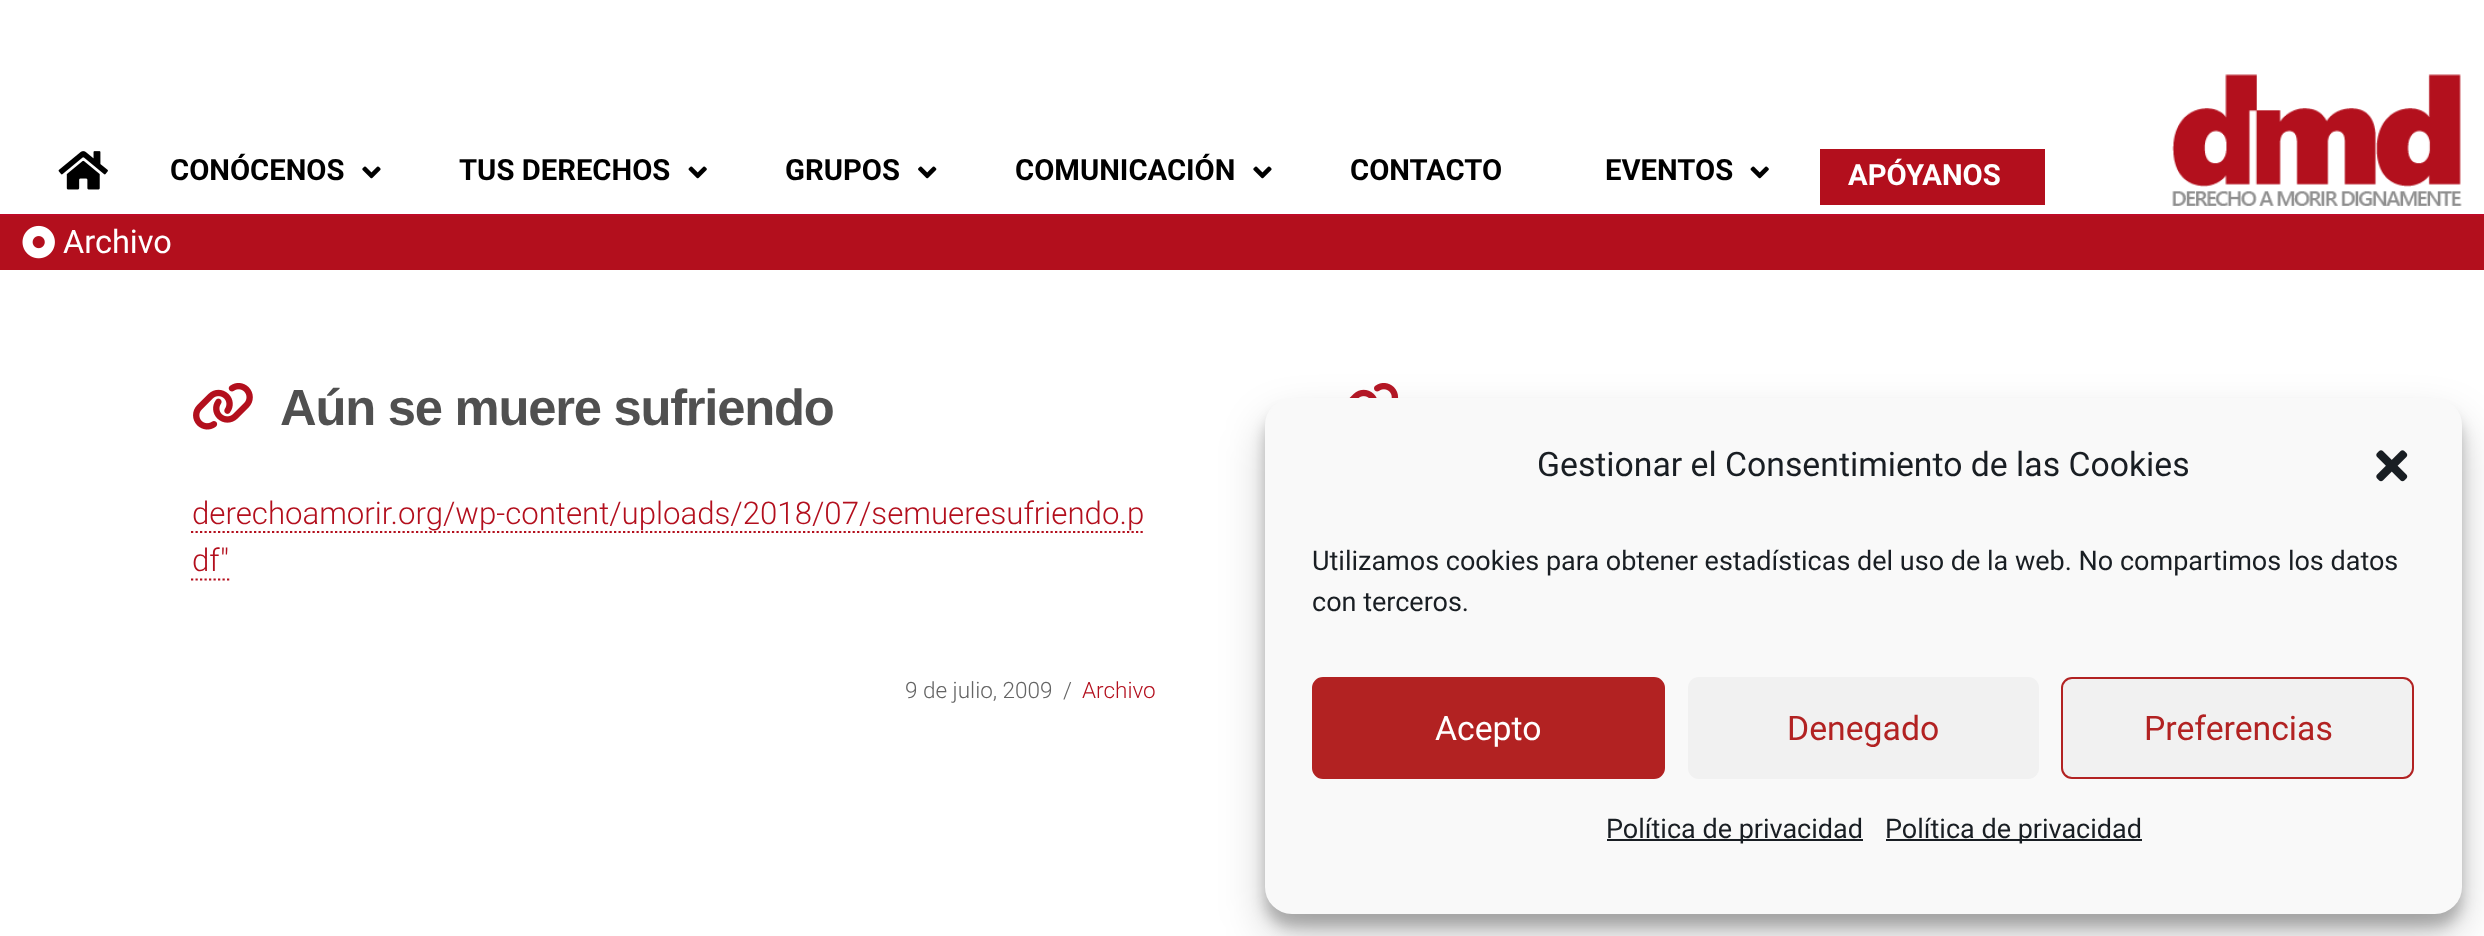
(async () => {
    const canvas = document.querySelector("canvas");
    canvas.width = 2484;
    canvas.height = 936;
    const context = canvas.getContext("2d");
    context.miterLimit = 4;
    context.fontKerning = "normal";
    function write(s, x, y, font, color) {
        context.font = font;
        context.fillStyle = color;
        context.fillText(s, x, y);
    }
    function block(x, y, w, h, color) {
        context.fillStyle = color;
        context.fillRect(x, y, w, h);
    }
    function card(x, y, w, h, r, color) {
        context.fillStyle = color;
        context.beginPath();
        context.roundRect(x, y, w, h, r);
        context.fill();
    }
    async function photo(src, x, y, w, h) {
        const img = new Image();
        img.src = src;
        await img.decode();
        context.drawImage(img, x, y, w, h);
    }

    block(0, 0, 2484, 936, "rgb(255, 255, 255)");
    block(0, 214, 2484, 2, "rgb(190, 10, 39)");
    await photo("media/1.png", 58, 151, 50, 39);
    write("CONÓCENOS", 170, 180, "bold 29.25px Roboto", "rgb(0, 0, 0)");
    await photo("media/2.png", 362, 166, 19, 13);
    write("TUS DERECHOS", 459, 180, "bold 29.25px Roboto", "rgb(0, 0, 0)");
    await photo("media/3.png", 688, 166, 19, 13);
    write("GRUPOS", 785, 180, "bold 29.25px Roboto", "rgb(0, 0, 0)");
    await photo("media/4.png", 918, 166, 19, 13);
    write("COMUNICACIÓN", 1015, 180, "bold 29.25px Roboto", "rgb(0, 0, 0)");
    await photo("media/2.png", 1253, 166, 19, 13);
    write("CONTACTO", 1350, 180, "bold 29.25px Roboto", "rgb(0, 0, 0)");
    write("EVENTOS", 1605, 180, "bold 29.25px Roboto", "rgb(0, 0, 0)");
    await photo("media/3.png", 1750, 166, 19, 13);
    block(1820, 149, 225, 56, "rgb(179, 15, 29)");
    write("APÓYANOS", 1848, 185, "bold 29.25px Roboto", "rgb(255, 255, 255)");
    await photo("media/5.png", 2172, 74, 290, 132);
    block(0, 216, 2484, 54, "rgb(179, 15, 29)");
    await photo("media/6.png", 22, 225, 33, 34);
    write("Archivo", 63, 253, "32.5px Roboto", "rgb(255, 255, 255)");
    await photo("media/7.png", 193, 383, 60, 47);
    context.letterSpacing = "-1.25px";
    write("Aún se muere sufriendo", 280, 425, "bold 50.75px Liberation Sans", "rgb(80, 80, 80)");
    context.beginPath();
    context.moveTo(191, 532);
    context.lineTo(1143, 532);
    context.strokeStyle = "rgb(179, 15, 29)";
    context.lineWidth = 2.2;
    context.setLineDash([2.25, 2.25]);
    context.stroke();
    context.letterSpacing = "0px";
    write("derechoamorir.org/wp-content/uploads/2018/07/semueresufriendo.p", 192, 524, "300 31.2px Roboto", "rgb(179, 15, 29)");
    write("df\"", 192, 571, "300 31.2px Roboto", "rgb(179, 15, 29)");
    context.beginPath();
    context.moveTo(191, 579.5);
    context.lineTo(229.5, 579.5);
    context.stroke();
    write("9 de julio, 2009", 905, 698, "300 22.5px Roboto", "rgb(100, 100, 100)");
    write("/", 1063, 698, "300 22.5px Roboto", "rgb(100, 100, 100)");
    write("Archivo", 1082, 698, "300 22.5px Roboto", "rgb(179, 15, 29)");
    await photo("media/8.png", 1349, 383, 50, 15);
    context.fillStyle = "rgba(0, 0, 0, 0.23)";
    context.filter = "blur(7px)";
    context.beginPath();
    context.roundRect(1265, 412, 1197, 515, 27);
    context.fill();
    context.filter = "none";
    context.fillStyle = "rgba(0, 0, 0, 0.19)";
    context.filter = "blur(22.5px)";
    context.beginPath();
    context.roundRect(1265, 421, 1197, 515, 27);
    context.fill();
    context.filter = "none";
    context.fillStyle = "rgb(249, 249, 249)";
    context.beginPath();
    context.roundRect(1266, 399, 1195, 514, 26);
    context.fill();
    context.strokeStyle = "rgb(249, 249, 249)";
    context.lineWidth = 2;
    context.setLineDash([]);
    context.stroke();
    write("Gestionar el Consentimiento de las Cookies", 1537, 476, "33.75px Roboto", "rgb(25, 30, 35)");
    await photo("media/9.png", 2376, 450, 32, 32);
    write("Utilizamos cookies para obtener estadísticas del uso de la web. No compartimos los datos", 1312, 570, "27px Roboto", "rgb(25, 30, 35)");
    write("con terceros.", 1312, 611, "27px Roboto", "rgb(25, 30, 35)");
    context.fillStyle = "rgb(178, 34, 34)";
    context.beginPath();
    context.roundRect(1313, 678, 351, 100, 10);
    context.fill();
    context.strokeStyle = "rgb(178, 34, 34)";
    context.stroke();
    write("Acepto", 1435, 740, "33.75px Roboto", "rgb(255, 255, 255)");
    card(1688, 677, 351, 102, 11, "rgb(241, 241, 241)");
    write("Denegado", 1787, 740, "33.75px Roboto", "rgb(178, 34, 34)");
    context.fillStyle = "rgb(241, 241, 241)";
    context.beginPath();
    context.roundRect(2062, 678, 351, 100, 10);
    context.fill();
    context.stroke();
    write("Preferencias", 2144, 740, "33.75px Roboto", "rgb(178, 34, 34)");
    block(1607, 839, 256, 2, "rgb(25, 30, 35)");
    write("Política de privacidad", 1606, 838, "27px Roboto", "rgb(25, 30, 35)");
    block(1886, 839, 256, 2, "rgb(25, 30, 35)");
    write("Política de privacidad", 1885, 838, "27px Roboto", "rgb(25, 30, 35)");
})();
